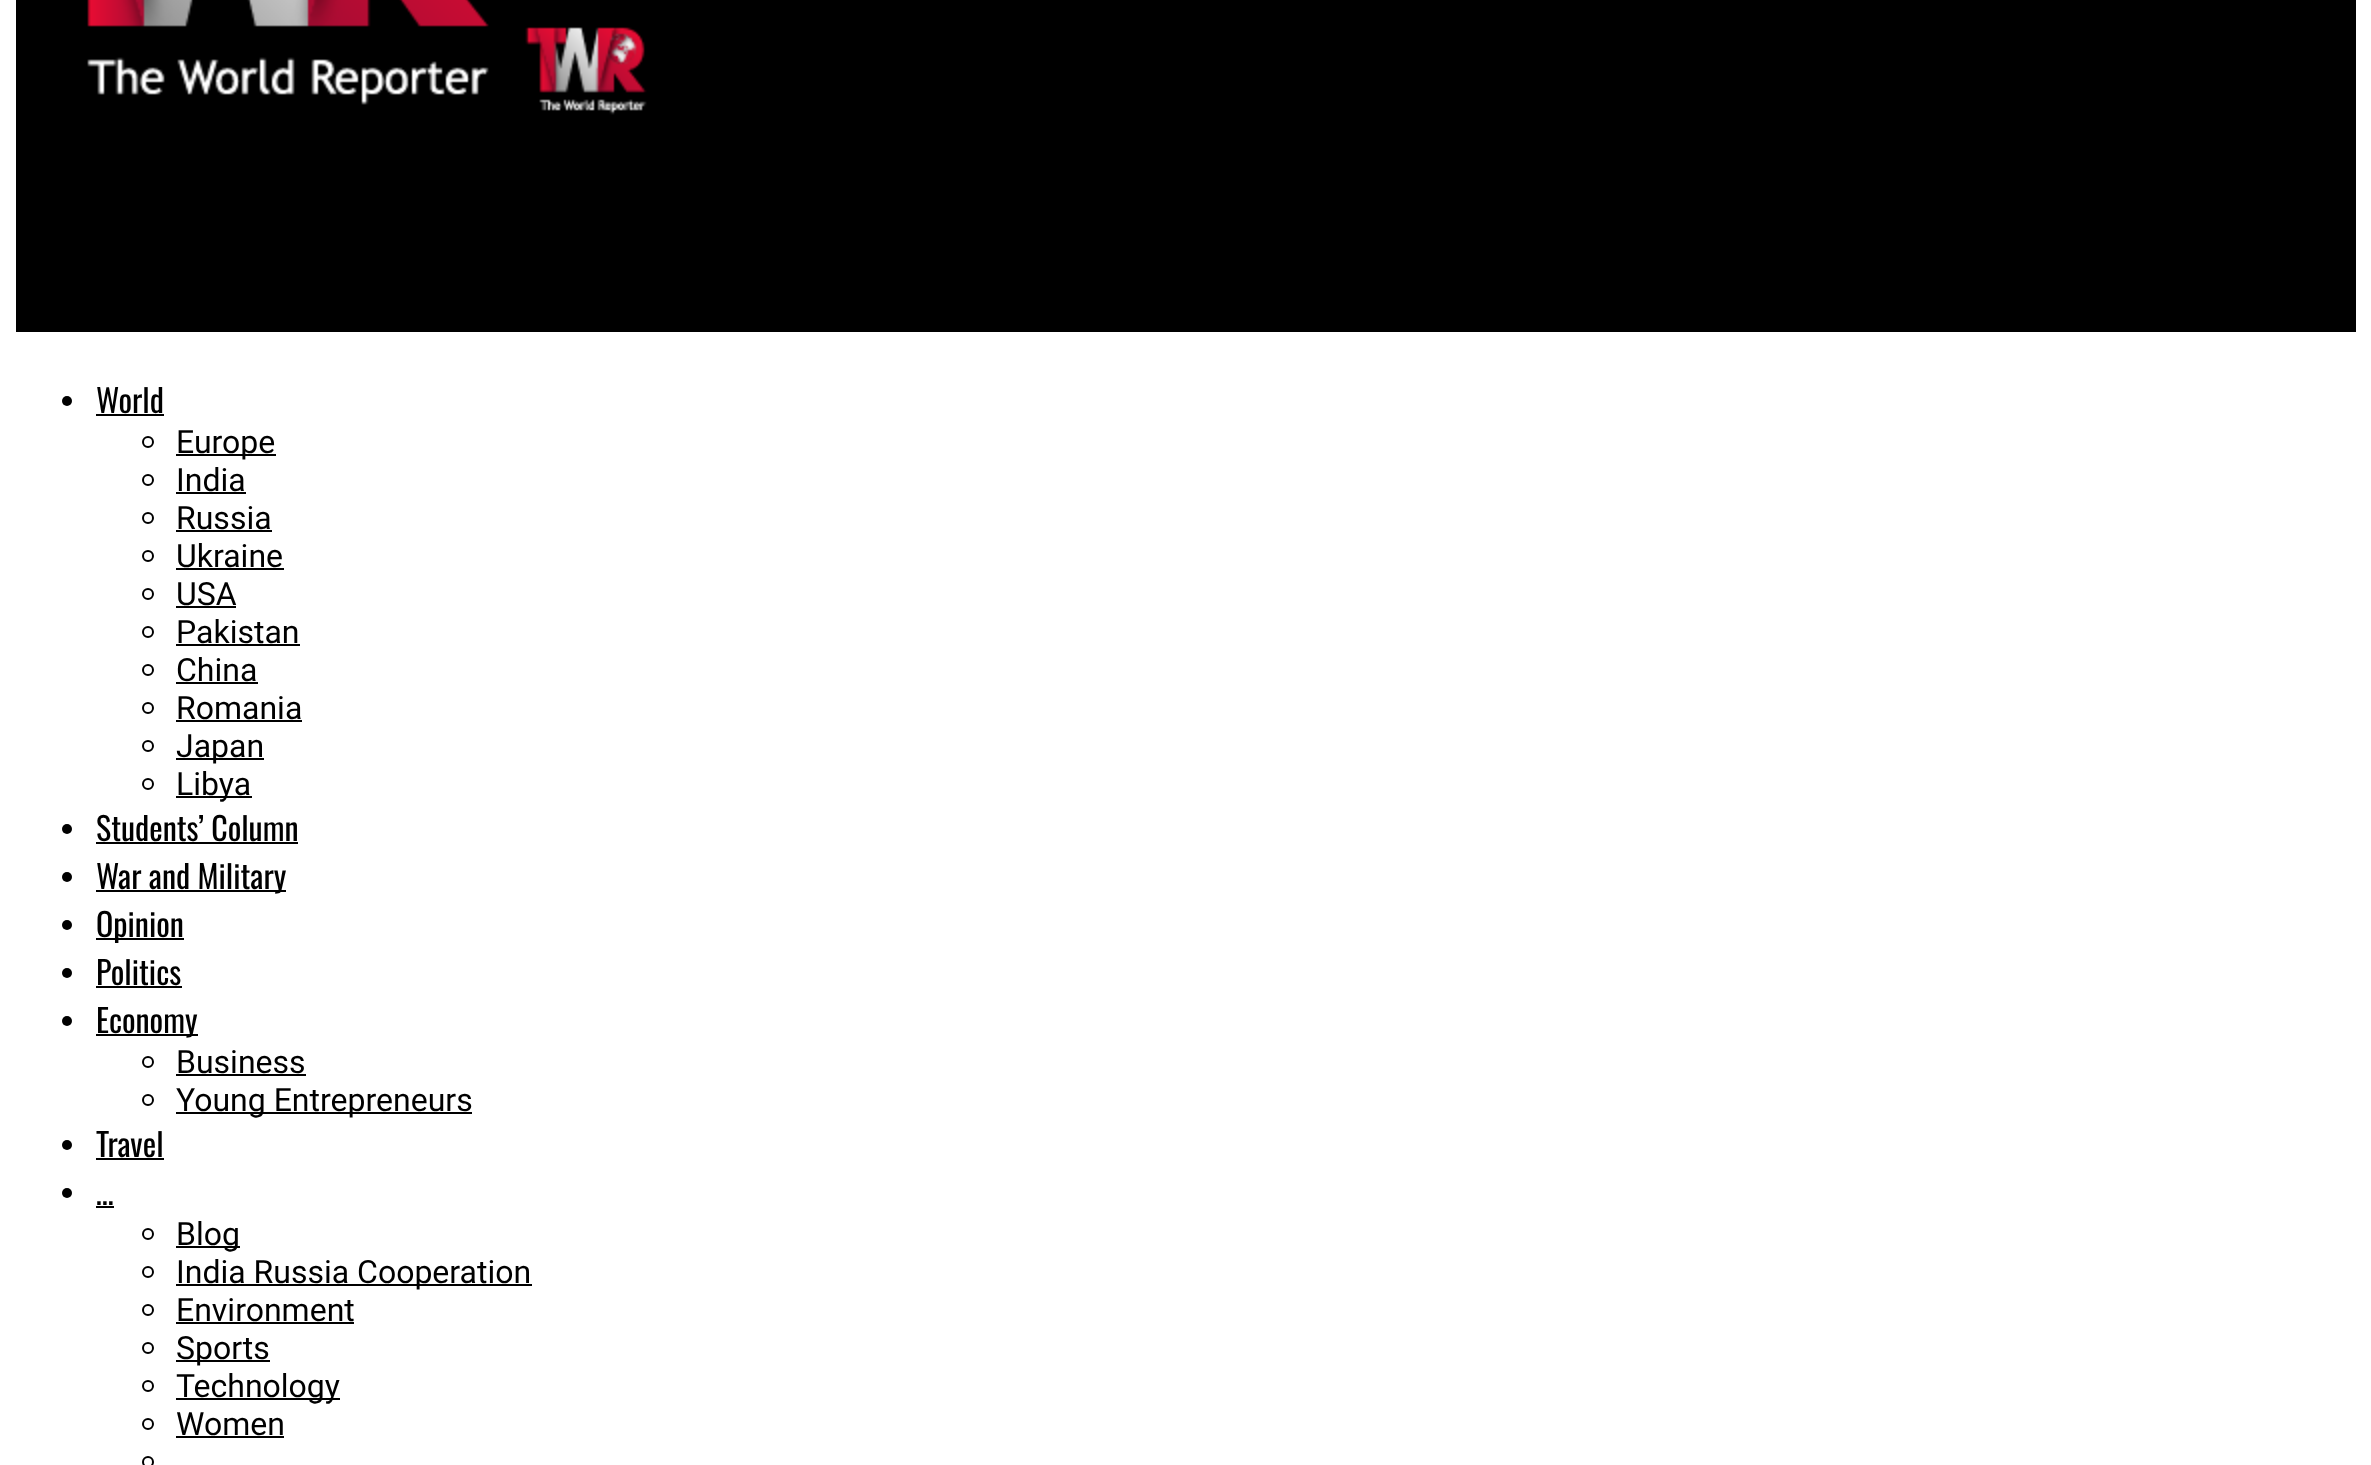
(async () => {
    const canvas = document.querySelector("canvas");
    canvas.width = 2371;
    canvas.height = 1465;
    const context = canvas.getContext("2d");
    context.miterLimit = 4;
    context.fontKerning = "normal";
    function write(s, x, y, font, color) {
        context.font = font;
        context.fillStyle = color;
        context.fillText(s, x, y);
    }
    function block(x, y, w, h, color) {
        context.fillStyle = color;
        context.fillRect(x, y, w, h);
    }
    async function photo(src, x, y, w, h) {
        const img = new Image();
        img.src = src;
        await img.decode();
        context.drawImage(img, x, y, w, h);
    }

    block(0, 0, 2371, 1465, "rgb(255, 255, 255)");
    block(16, 0, 2340, 332, "rgb(0, 0, 0)");
    await photo("media/1.png", 87, 0, 402, 105);
    await photo("media/2.png", 525, 27, 122, 88);
    context.beginPath();
    context.arc(67, 401, 5, 0, Math.PI * 2);
    context.fill();
    write("World", 96, 413, "32px Oswald", "rgb(0, 0, 0)");
    block(96, 414, 68, 2, "rgb(0, 0, 0)");
    context.beginPath();
    context.arc(148, 442, 5, 0, Math.PI * 2);
    context.strokeStyle = "rgb(0, 0, 0)";
    context.lineWidth = 2;
    context.stroke();
    block(176, 454, 100, 2, "rgb(0, 0, 0)");
    write("Europe", 176, 453, "32px Roboto", "rgb(0, 0, 0)");
    context.beginPath();
    context.arc(148, 480, 5, 0, Math.PI * 2);
    context.stroke();
    write("India", 176, 491, "32px Roboto", "rgb(0, 0, 0)");
    block(176, 492, 70, 2, "rgb(0, 0, 0)");
    context.beginPath();
    context.arc(148, 518, 5, 0, Math.PI * 2);
    context.stroke();
    write("Russia", 176, 529, "32px Roboto", "rgb(0, 0, 0)");
    block(176, 530, 96, 2, "rgb(0, 0, 0)");
    context.beginPath();
    context.arc(148, 556, 5, 0, Math.PI * 2);
    context.stroke();
    write("Ukraine", 176, 567, "32px Roboto", "rgb(0, 0, 0)");
    block(176, 568, 108, 2, "rgb(0, 0, 0)");
    context.beginPath();
    context.arc(148, 594, 5, 0, Math.PI * 2);
    context.stroke();
    write("USA", 176, 605, "32px Roboto", "rgb(0, 0, 0)");
    block(176, 606, 60, 2, "rgb(0, 0, 0)");
    context.beginPath();
    context.arc(148, 632, 5, 0, Math.PI * 2);
    context.stroke();
    write("Pakistan", 176, 643, "32px Roboto", "rgb(0, 0, 0)");
    block(176, 644, 124, 2, "rgb(0, 0, 0)");
    context.beginPath();
    context.arc(148, 670, 5, 0, Math.PI * 2);
    context.stroke();
    write("China", 176, 681, "32px Roboto", "rgb(0, 0, 0)");
    block(176, 682, 82, 2, "rgb(0, 0, 0)");
    context.beginPath();
    context.arc(148, 708, 5, 0, Math.PI * 2);
    context.stroke();
    write("Romania", 176, 719, "32px Roboto", "rgb(0, 0, 0)");
    block(176, 720, 126, 2, "rgb(0, 0, 0)");
    context.beginPath();
    context.arc(148, 746, 5, 0, Math.PI * 2);
    context.stroke();
    block(176, 758, 88, 2, "rgb(0, 0, 0)");
    write("Japan", 176, 757, "32px Roboto", "rgb(0, 0, 0)");
    context.beginPath();
    context.arc(148, 784, 5, 0, Math.PI * 2);
    context.stroke();
    block(176, 796, 76, 2, "rgb(0, 0, 0)");
    write("Libya", 176, 795, "32px Roboto", "rgb(0, 0, 0)");
    context.beginPath();
    context.arc(67, 829, 5, 0, Math.PI * 2);
    context.fill();
    write("Students’ Column", 96, 841, "32px Oswald", "rgb(0, 0, 0)");
    block(96, 842, 202, 2, "rgb(0, 0, 0)");
    context.beginPath();
    context.arc(67, 877, 5, 0, Math.PI * 2);
    context.fill();
    block(96, 890, 190, 2, "rgb(0, 0, 0)");
    write("War and Military", 96, 889, "32px Oswald", "rgb(0, 0, 0)");
    context.beginPath();
    context.arc(67, 925, 5, 0, Math.PI * 2);
    context.fill();
    block(96, 938, 88, 2, "rgb(0, 0, 0)");
    write("Opinion", 96, 937, "32px Oswald", "rgb(0, 0, 0)");
    context.beginPath();
    context.arc(67, 973, 5, 0, Math.PI * 2);
    context.fill();
    write("Politics", 96, 985, "32px Oswald", "rgb(0, 0, 0)");
    block(96, 986, 86, 2, "rgb(0, 0, 0)");
    context.beginPath();
    context.arc(67, 1021, 5, 0, Math.PI * 2);
    context.fill();
    block(96, 1034, 102, 2, "rgb(0, 0, 0)");
    write("Economy", 96, 1033, "32px Oswald", "rgb(0, 0, 0)");
    context.beginPath();
    context.arc(148, 1062, 5, 0, Math.PI * 2);
    context.stroke();
    write("Business", 176, 1073, "32px Roboto", "rgb(0, 0, 0)");
    block(176, 1074, 130, 2, "rgb(0, 0, 0)");
    context.beginPath();
    context.arc(148, 1100, 5, 0, Math.PI * 2);
    context.stroke();
    block(176, 1112, 296, 2, "rgb(0, 0, 0)");
    write("Young Entrepreneurs", 176, 1111, "32px Roboto", "rgb(0, 0, 0)");
    context.beginPath();
    context.arc(67, 1145, 5, 0, Math.PI * 2);
    context.fill();
    write("Travel", 96, 1157, "32px Oswald", "rgb(0, 0, 0)");
    block(96, 1158, 68, 2, "rgb(0, 0, 0)");
    context.beginPath();
    context.arc(67, 1193, 5, 0, Math.PI * 2);
    context.fill();
    write("…", 96, 1205, "32px Oswald", "rgb(0, 0, 0)");
    block(96, 1206, 18, 2, "rgb(0, 0, 0)");
    context.beginPath();
    context.arc(148, 1234, 5, 0, Math.PI * 2);
    context.stroke();
    block(176, 1246, 64, 2, "rgb(0, 0, 0)");
    write("Blog", 176, 1245, "32px Roboto", "rgb(0, 0, 0)");
    context.beginPath();
    context.arc(148, 1272, 5, 0, Math.PI * 2);
    context.stroke();
    block(176, 1284, 356, 2, "rgb(0, 0, 0)");
    write("India Russia Cooperation", 176, 1283, "32px Roboto", "rgb(0, 0, 0)");
    context.beginPath();
    context.arc(148, 1310, 5, 0, Math.PI * 2);
    context.stroke();
    write("Environment", 176, 1321, "32px Roboto", "rgb(0, 0, 0)");
    block(176, 1322, 178, 2, "rgb(0, 0, 0)");
    context.beginPath();
    context.arc(148, 1348, 5, 0, Math.PI * 2);
    context.stroke();
    block(176, 1360, 94, 2, "rgb(0, 0, 0)");
    write("Sports", 176, 1359, "32px Roboto", "rgb(0, 0, 0)");
    context.beginPath();
    context.arc(148, 1386, 5, 0, Math.PI * 2);
    context.stroke();
    block(176, 1398, 164, 2, "rgb(0, 0, 0)");
    write("Technology", 176, 1397, "32px Roboto", "rgb(0, 0, 0)");
    context.beginPath();
    context.arc(148, 1424, 5, 0, Math.PI * 2);
    context.stroke();
    write("Women", 176, 1435, "32px Roboto", "rgb(0, 0, 0)");
    block(176, 1436, 108, 2, "rgb(0, 0, 0)");
    context.beginPath();
    context.arc(148, 1462, 5, 0, Math.PI * 2);
    context.stroke();
})();
